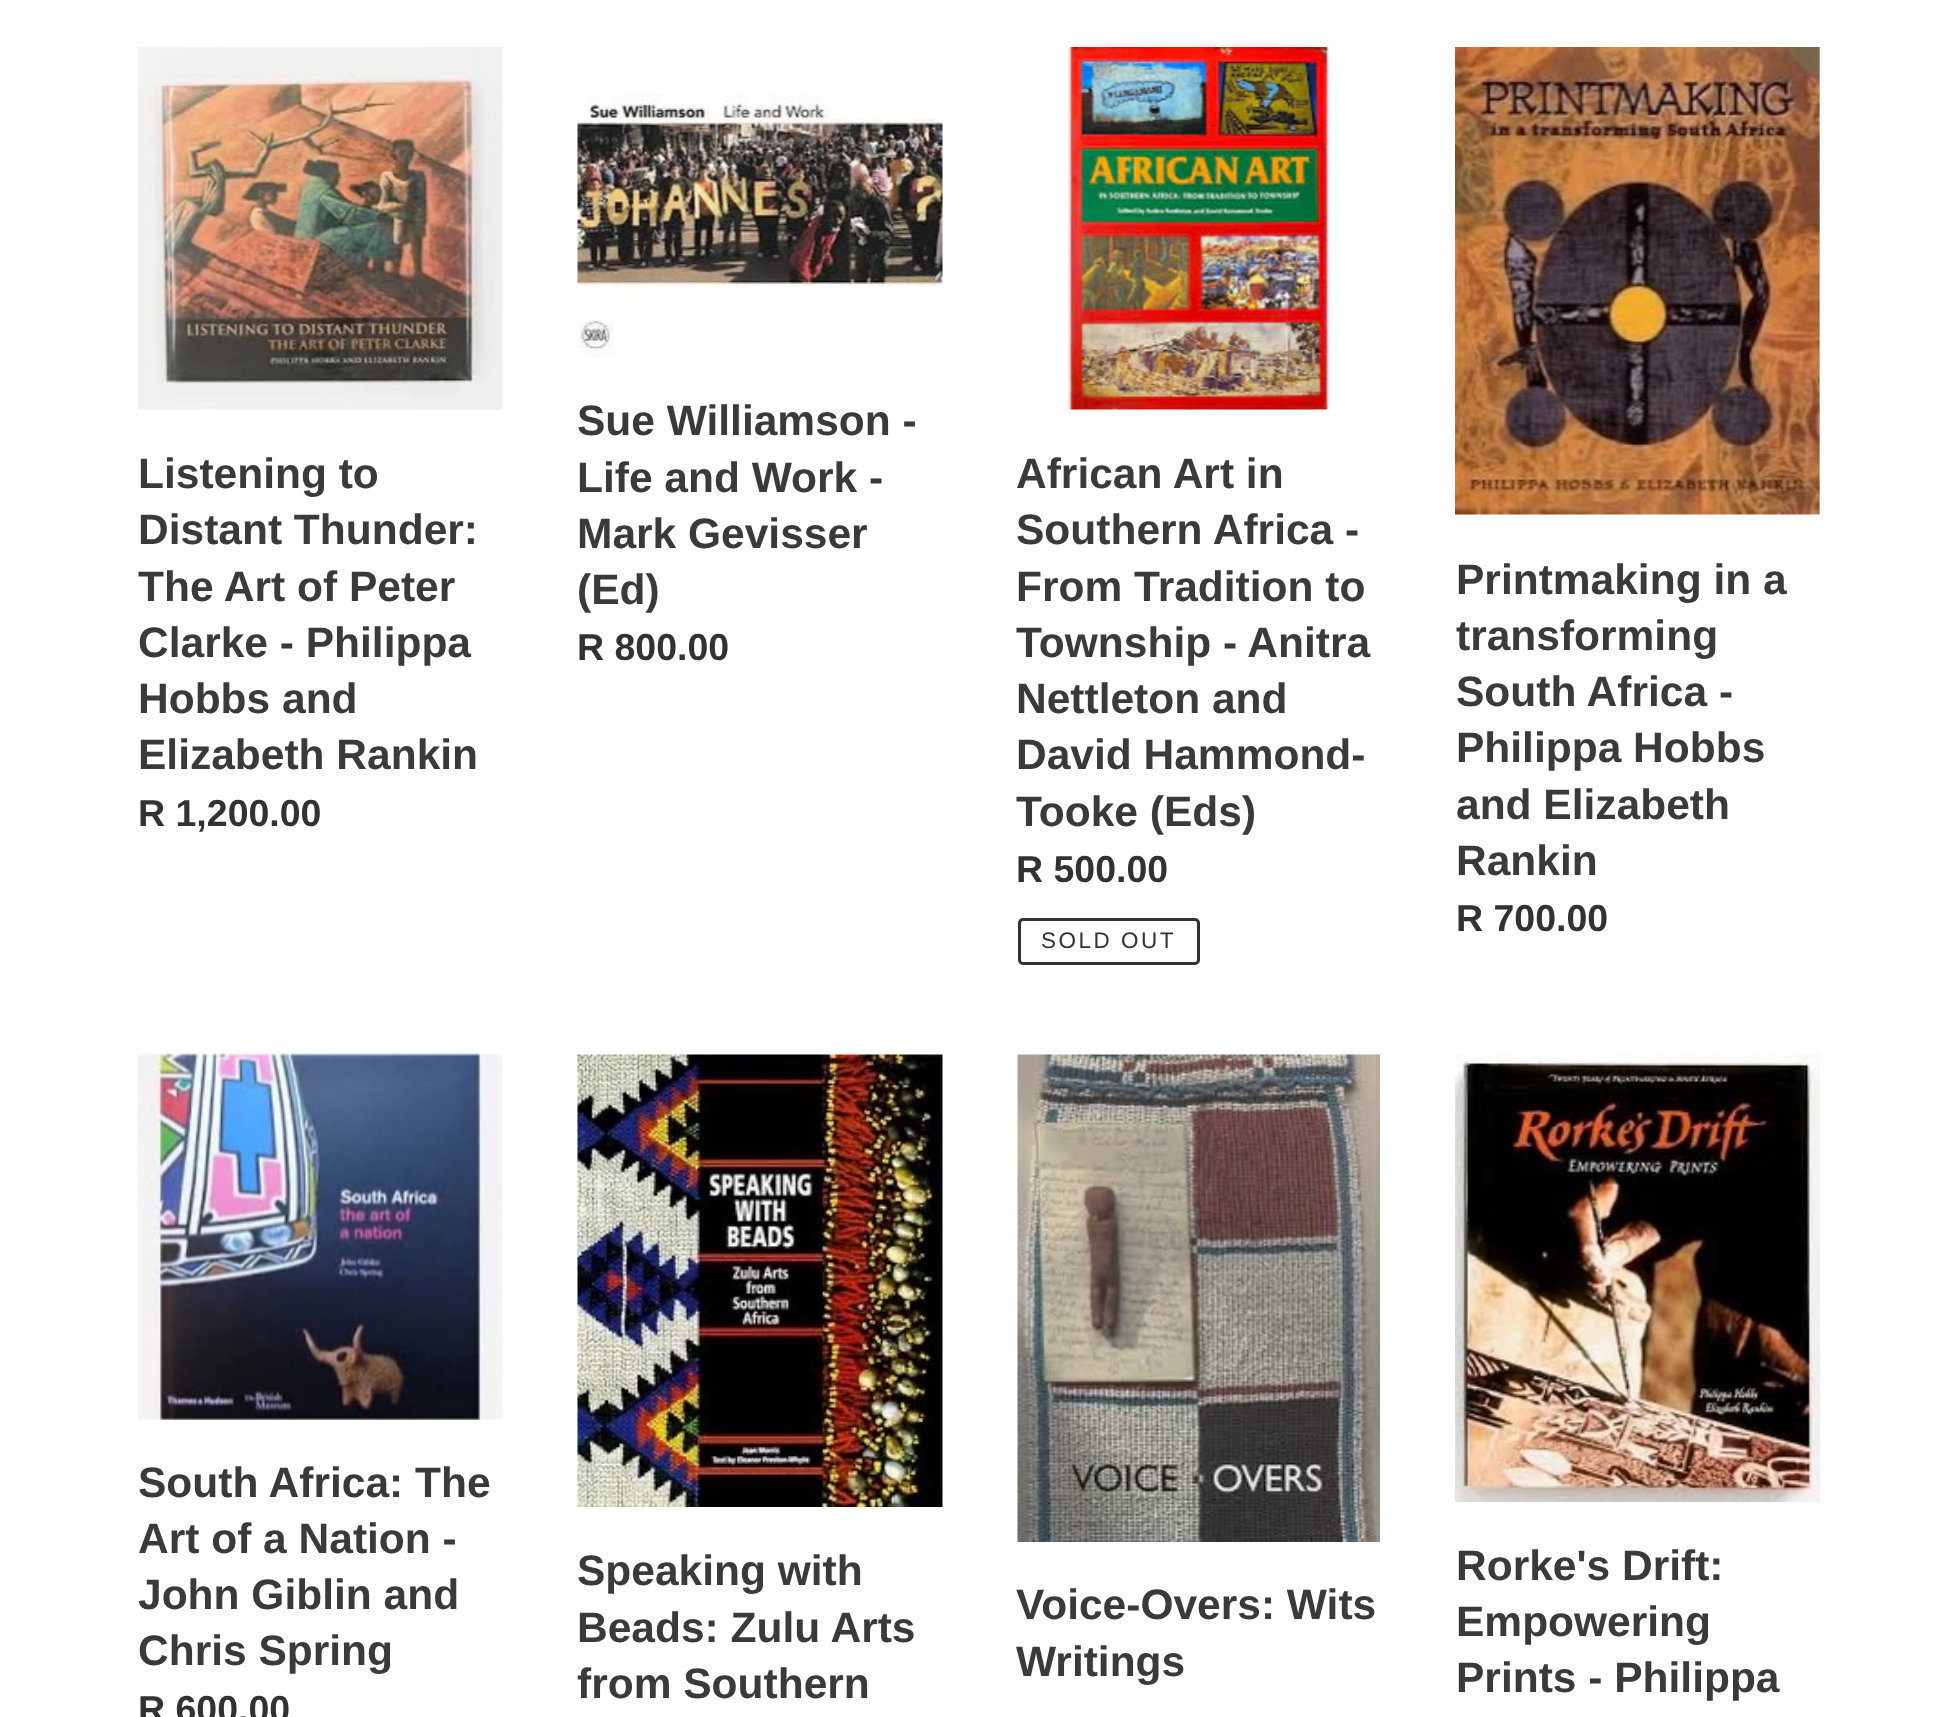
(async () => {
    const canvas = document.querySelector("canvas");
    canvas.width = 1956;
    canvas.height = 1717;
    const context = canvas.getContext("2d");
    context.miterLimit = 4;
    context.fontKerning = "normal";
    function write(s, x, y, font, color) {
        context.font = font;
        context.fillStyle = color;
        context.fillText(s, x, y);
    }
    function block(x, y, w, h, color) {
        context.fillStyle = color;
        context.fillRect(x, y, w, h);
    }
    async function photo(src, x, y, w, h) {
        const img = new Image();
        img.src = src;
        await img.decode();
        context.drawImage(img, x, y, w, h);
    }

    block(0, 0, 1956, 1717, "rgb(255, 255, 255)");
    await photo("media/1.png", 138, 47, 365, 363);
    write("Listening to", 138, 488, "bold 42.5px Liberation Sans", "rgb(58, 58, 58)");
    write("Distant Thunder:", 138, 544, "bold 42.5px Liberation Sans", "rgb(58, 58, 58)");
    write("The Art of Peter", 138, 601, "bold 42.5px Liberation Sans", "rgb(58, 58, 58)");
    write("Clarke - Philippa", 138, 657, "bold 42.5px Liberation Sans", "rgb(58, 58, 58)");
    write("Hobbs and", 138, 713, "bold 42.5px Liberation Sans", "rgb(58, 58, 58)");
    write("Elizabeth Rankin", 138, 769, "bold 42.5px Liberation Sans", "rgb(58, 58, 58)");
    write("R 1,200.00", 138, 826, "bold 37.5px Liberation Sans", "rgb(51, 50, 50)");
    await photo("media/2.png", 577, 94, 366, 263);
    write("Sue Williamson -", 577, 435, "bold 42.5px Liberation Sans", "rgb(58, 58, 58)");
    write("Life and Work -", 577, 492, "bold 42.5px Liberation Sans", "rgb(58, 58, 58)");
    write("Mark Gevisser", 577, 548, "bold 42.5px Liberation Sans", "rgb(58, 58, 58)");
    write("(Ed)", 577, 604, "bold 42.5px Liberation Sans", "rgb(58, 58, 58)");
    write("R 800.00", 577, 660, "bold 37.5px Liberation Sans", "rgb(51, 50, 50)");
    await photo("media/3.png", 1067, 47, 272, 363);
    write("African Art in", 1016, 488, "bold 42.5px Liberation Sans", "rgb(58, 58, 58)");
    write("Southern Africa -", 1016, 544, "bold 42.5px Liberation Sans", "rgb(58, 58, 58)");
    write("From Tradition to", 1016, 601, "bold 42.5px Liberation Sans", "rgb(58, 58, 58)");
    write("Township - Anitra", 1016, 657, "bold 42.5px Liberation Sans", "rgb(58, 58, 58)");
    write("Nettleton and", 1016, 713, "bold 42.5px Liberation Sans", "rgb(58, 58, 58)");
    write("David Hammond-", 1016, 769, "bold 42.5px Liberation Sans", "rgb(58, 58, 58)");
    write("Tooke (Eds)", 1016, 826, "bold 42.5px Liberation Sans", "rgb(58, 58, 58)");
    write("R 500.00", 1016, 882, "bold 37.5px Liberation Sans", "rgb(51, 50, 50)");
    context.beginPath();
    context.roundRect(1019.5, 919.5, 179, 44, 3.5);
    context.strokeStyle = "rgb(51, 50, 50)";
    context.lineWidth = 3;
    context.stroke();
    context.letterSpacing = "2.5px";
    write("SOLD OUT", 1041, 948, "22.5px Liberation Sans", "rgb(51, 50, 50)");
    await photo("media/4.png", 1455, 47, 365, 468);
    context.letterSpacing = "0px";
    write("Printmaking in a", 1456, 594, "bold 42.5px Liberation Sans", "rgb(58, 58, 58)");
    write("transforming", 1456, 650, "bold 42.5px Liberation Sans", "rgb(58, 58, 58)");
    write("South Africa -", 1456, 706, "bold 42.5px Liberation Sans", "rgb(58, 58, 58)");
    write("Philippa Hobbs", 1456, 762, "bold 42.5px Liberation Sans", "rgb(58, 58, 58)");
    write("and Elizabeth", 1456, 819, "bold 42.5px Liberation Sans", "rgb(58, 58, 58)");
    write("Rankin", 1456, 875, "bold 42.5px Liberation Sans", "rgb(58, 58, 58)");
    write("R 700.00", 1456, 931, "bold 37.5px Liberation Sans", "rgb(51, 50, 50)");
    await photo("media/5.png", 137, 1053, 366, 367);
    write("South Africa: The", 138, 1497, "bold 42.5px Liberation Sans", "rgb(58, 58, 58)");
    write("Art of a Nation -", 138, 1553, "bold 42.5px Liberation Sans", "rgb(58, 58, 58)");
    write("John Giblin and", 138, 1609, "bold 42.5px Liberation Sans", "rgb(58, 58, 58)");
    write("Chris Spring", 138, 1665, "bold 42.5px Liberation Sans", "rgb(58, 58, 58)");
    write("R 600.00", 138, 1722, "bold 37.5px Liberation Sans", "rgb(51, 50, 50)");
    await photo("media/6.png", 577, 1054, 366, 453);
    write("Speaking with", 577, 1585, "bold 42.5px Liberation Sans", "rgb(58, 58, 58)");
    write("Beads: Zulu Arts", 577, 1642, "bold 42.5px Liberation Sans", "rgb(58, 58, 58)");
    write("from Southern", 577, 1698, "bold 42.5px Liberation Sans", "rgb(58, 58, 58)");
    await photo("media/7.png", 1017, 1054, 363, 488);
    write("Voice-Overs: Wits", 1016, 1619, "bold 42.5px Liberation Sans", "rgb(58, 58, 58)");
    write("Writings", 1016, 1676, "bold 42.5px Liberation Sans", "rgb(58, 58, 58)");
    await photo("media/8.png", 1455, 1054, 365, 448);
    write("Rorke's Drift:", 1456, 1580, "bold 42.5px Liberation Sans", "rgb(58, 58, 58)");
    write("Empowering", 1456, 1636, "bold 42.5px Liberation Sans", "rgb(58, 58, 58)");
    write("Prints - Philippa", 1456, 1692, "bold 42.5px Liberation Sans", "rgb(58, 58, 58)");
})();
